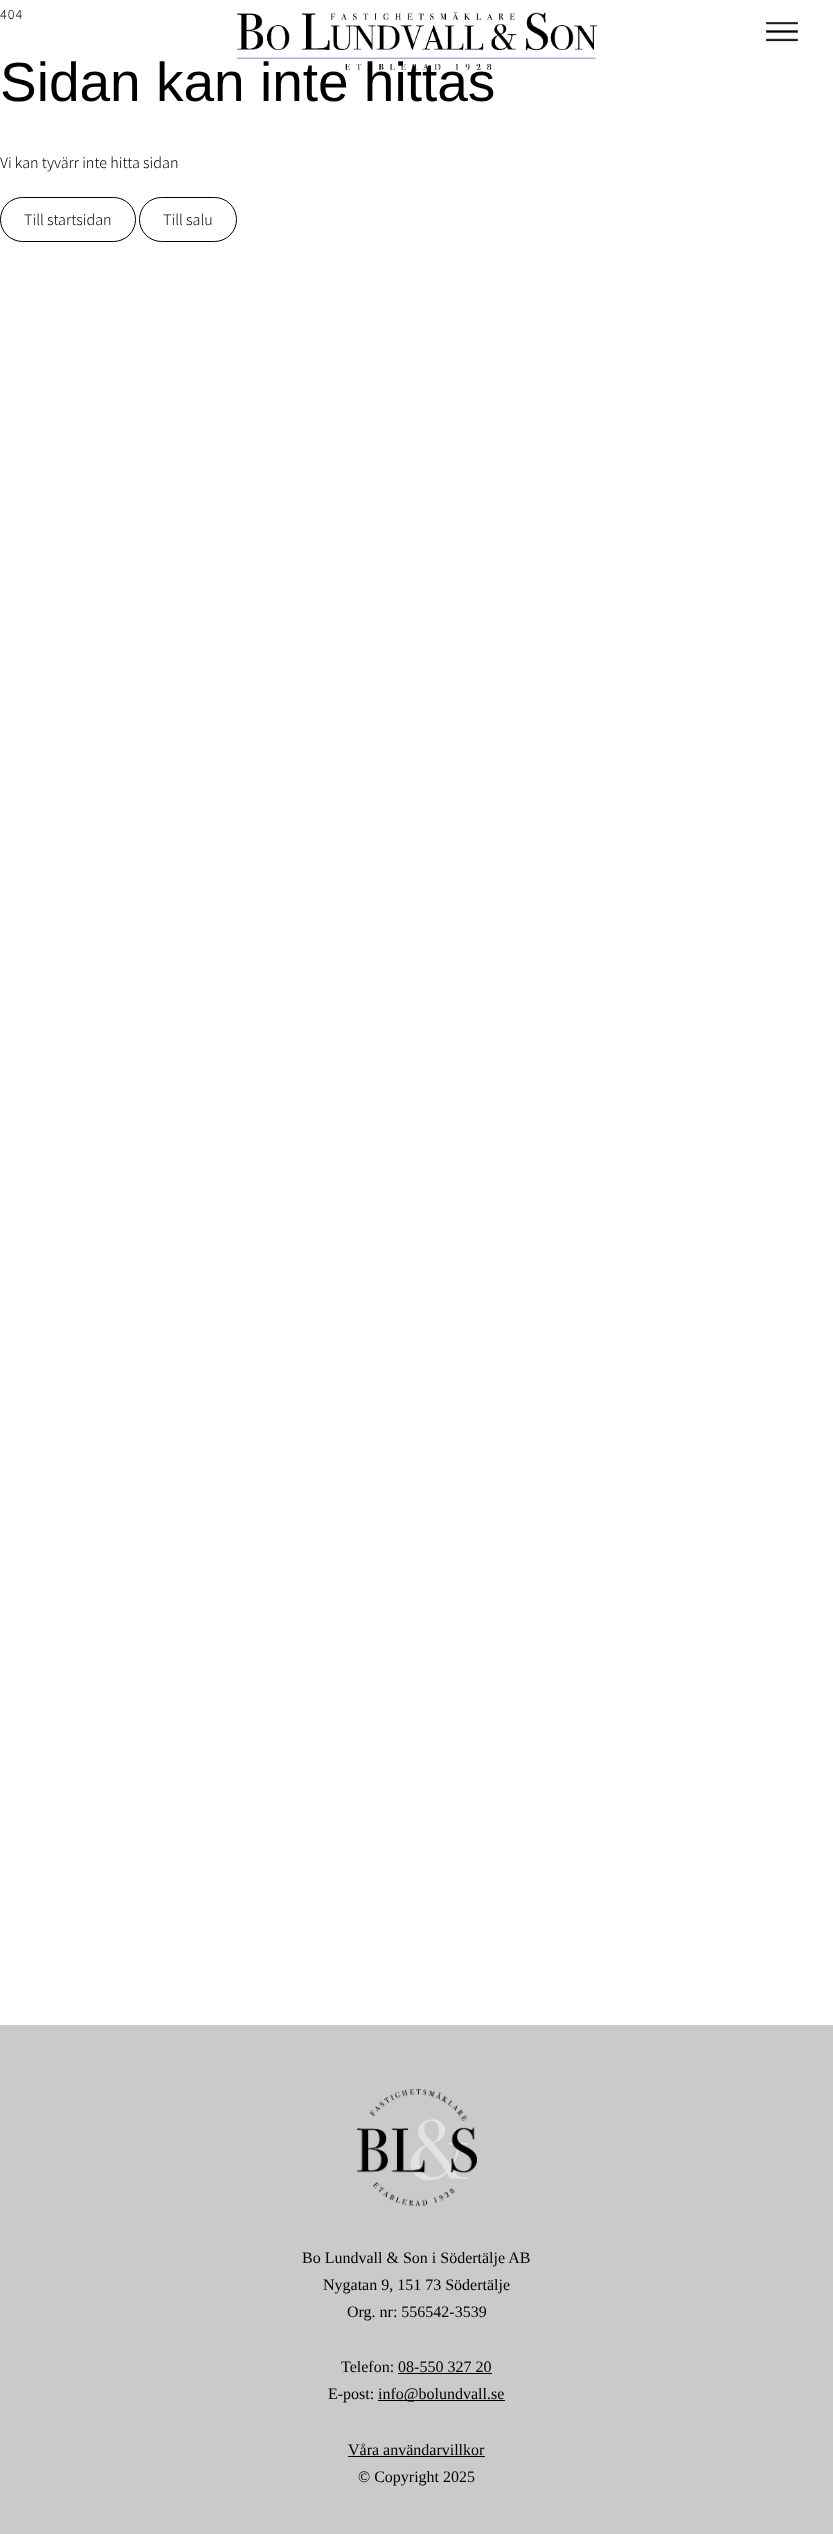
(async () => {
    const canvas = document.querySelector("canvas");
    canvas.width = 833;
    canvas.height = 2534;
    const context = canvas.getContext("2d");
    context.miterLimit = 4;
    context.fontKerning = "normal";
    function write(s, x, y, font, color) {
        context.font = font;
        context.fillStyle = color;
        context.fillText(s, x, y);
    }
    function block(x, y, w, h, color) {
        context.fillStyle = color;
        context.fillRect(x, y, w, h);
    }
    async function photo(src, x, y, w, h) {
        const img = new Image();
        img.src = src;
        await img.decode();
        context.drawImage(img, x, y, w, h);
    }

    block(0, 0, 833, 2534, "rgb(255, 255, 255)");
    context.letterSpacing = "1px";
    write("404", 0, 19, "300 14px Assistant", "rgb(0, 0, 0)");
    context.letterSpacing = "0px";
    write("Sidan kan inte hittas", 0, 101, "55px Liberation Sans", "rgb(0, 0, 0)");
    write("Vi kan tyvärr inte hitta sidan", 0, 168, "300 16px Assistant", "rgb(0, 0, 0)");
    context.beginPath();
    context.roundRect(0.5, 197.5, 135, 44, 22);
    context.strokeStyle = "rgb(0, 0, 0)";
    context.stroke();
    write("Till startsidan", 24, 225, "300 16px Assistant", "rgb(0, 0, 0)");
    context.beginPath();
    context.roundRect(139.5, 197.5, 97, 44, 22);
    context.stroke();
    write("Till salu", 163, 225, "300 16px Assistant", "rgb(0, 0, 0)");
    block(0, 2025, 833, 509, "rgb(202, 202, 202)");
    await photo("media/1.png", 357, 2089, 120, 117);
    write("Bo Lundvall & Son i Södertälje AB", 302, 2263, "16px Liberation Serif", "rgb(0, 0, 0)");
    write("Nygatan 9, 151 73 Södertälje", 323, 2290, "16px Liberation Serif", "rgb(0, 0, 0)");
    write("Org. nr: 556542-3539", 347, 2317, "16px Liberation Serif", "rgb(0, 0, 0)");
    write("Telefon: 08-550 327 20", 341, 2372, "16px Liberation Serif", "rgb(0, 0, 0)");
    block(398, 2373, 94, 1, "rgb(0, 0, 0)");
    write("E-post:", 328, 2399, "16px Liberation Serif", "rgb(0, 0, 0)");
    block(378, 2400, 127, 1, "rgb(0, 0, 0)");
    write("info@bolundvall.se", 378, 2399, "16px Liberation Serif", "rgb(0, 0, 0)");
    write("Våra användarvillkor", 348, 2455, "16px Liberation Serif", "rgb(0, 0, 0)");
    block(348, 2456, 137, 1, "rgb(0, 0, 0)");
    write("© Copyright 2025", 358, 2482, "16px Liberation Serif", "rgb(0, 0, 0)");
    await photo("media/2.png", 236, 12, 361, 59);
    await photo("media/3.png", 766, 22, 32, 20);
})();
